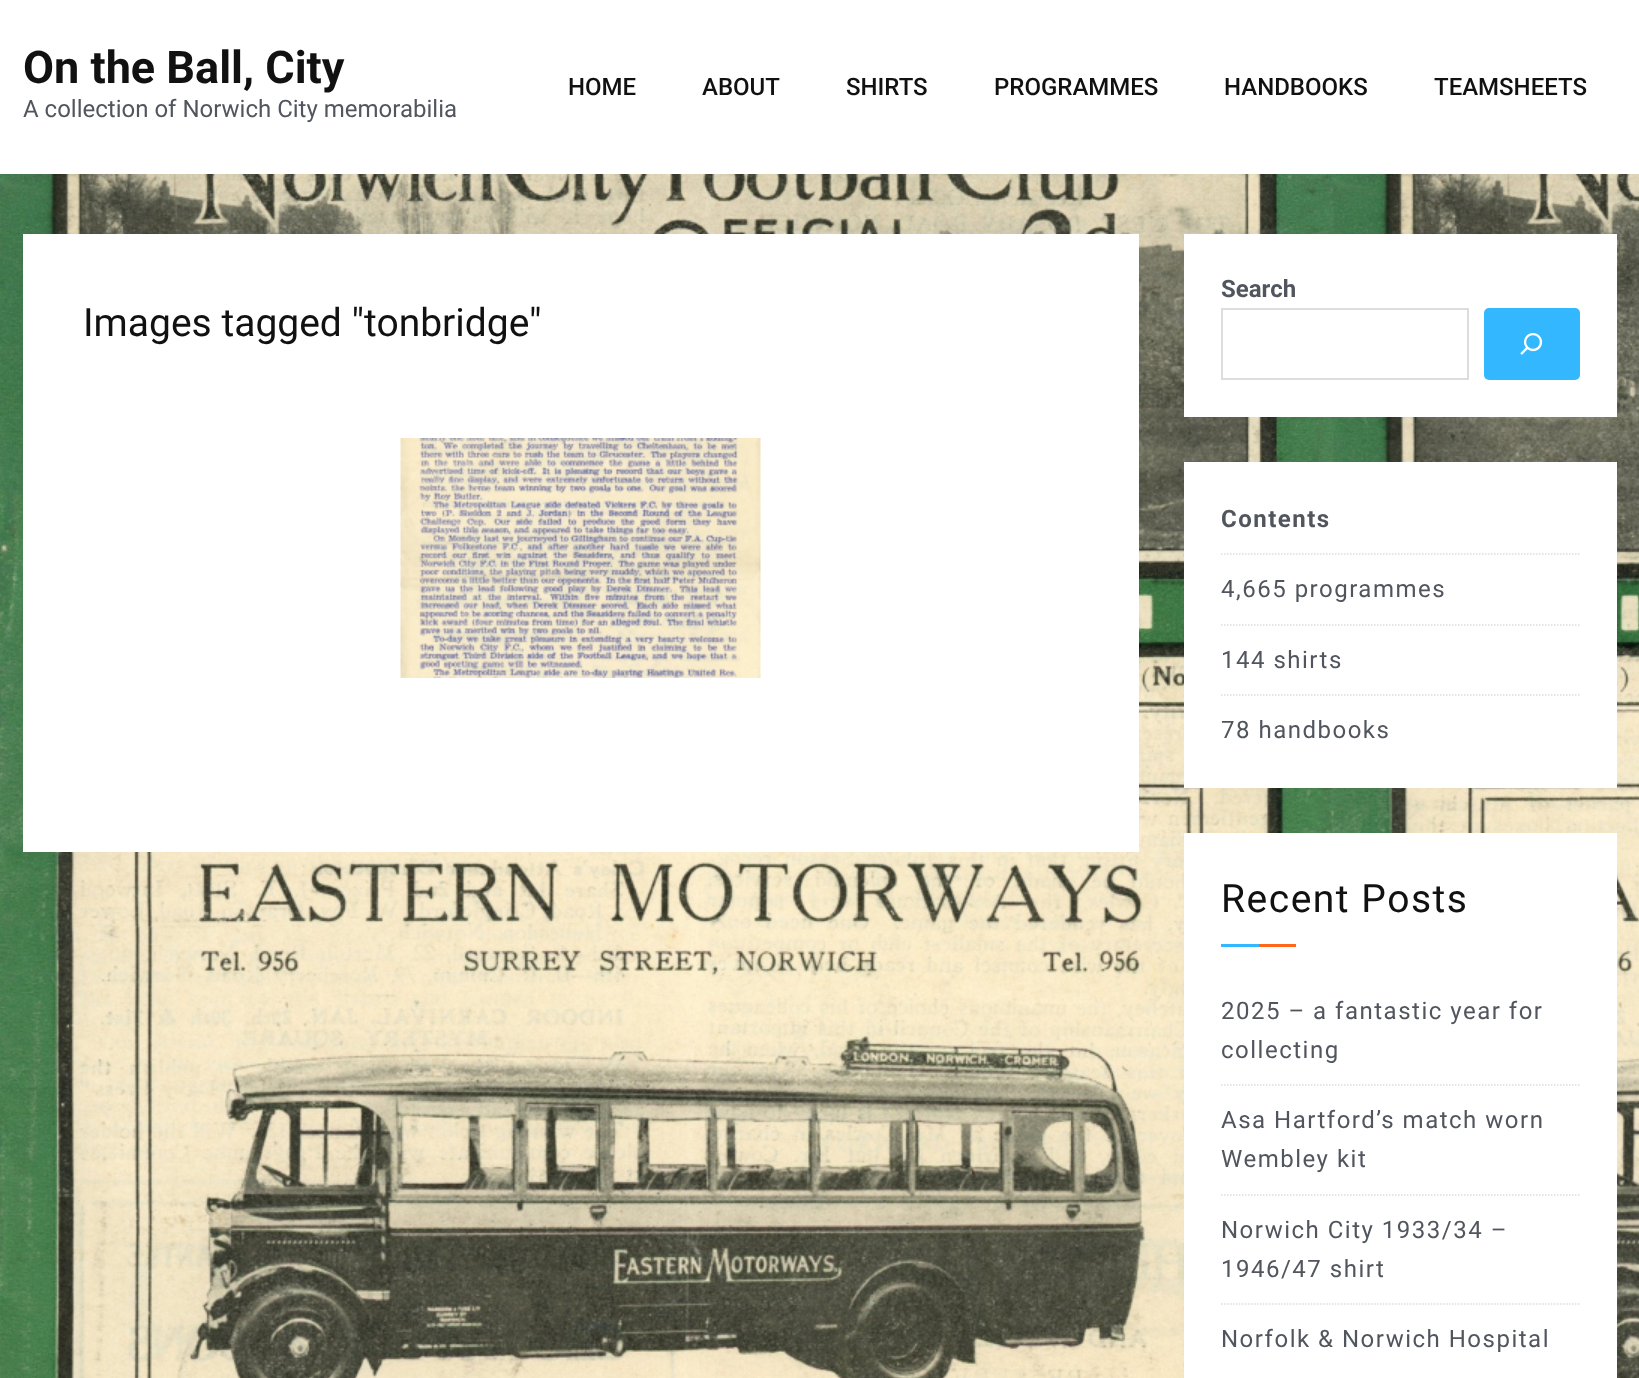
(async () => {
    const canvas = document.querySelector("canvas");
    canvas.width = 1639;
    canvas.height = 1378;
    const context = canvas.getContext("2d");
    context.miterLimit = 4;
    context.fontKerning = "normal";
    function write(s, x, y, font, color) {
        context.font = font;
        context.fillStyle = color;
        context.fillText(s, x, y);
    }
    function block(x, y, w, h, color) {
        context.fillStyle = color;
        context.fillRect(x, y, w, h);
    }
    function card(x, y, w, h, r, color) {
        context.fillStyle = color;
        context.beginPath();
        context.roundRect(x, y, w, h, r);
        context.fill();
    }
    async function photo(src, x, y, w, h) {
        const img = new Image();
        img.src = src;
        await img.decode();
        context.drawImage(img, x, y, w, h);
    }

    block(0, 0, 1639, 1378, "rgb(255, 255, 255)");
    await photo("media/1.png", 0, 174, 1639, 1204);
    write("On the Ball, City", 23, 83, "bold 45px Roboto", "rgb(17, 17, 17)");
    write("A collection of Norwich City memorabilia", 23, 117, "24px Roboto", "rgb(81, 86, 94)");
    write("HOME", 568, 95, "500 24px Roboto", "rgb(17, 17, 17)");
    write("ABOUT", 702, 95, "500 24px Roboto", "rgb(17, 17, 17)");
    write("SHIRTS", 846, 95, "500 24px Roboto", "rgb(17, 17, 17)");
    write("PROGRAMMES", 994, 95, "500 24px Roboto", "rgb(17, 17, 17)");
    write("HANDBOOKS", 1224, 95, "500 24px Roboto", "rgb(17, 17, 17)");
    write("TEAMSHEETS", 1434, 95, "500 24px Roboto", "rgb(17, 17, 17)");
    block(23, 234, 1116, 618, "rgb(255, 255, 255)");
    write("Images tagged \"tonbridge\"", 83, 336, "39px Roboto", "rgb(17, 17, 17)");
    await photo("media/2.png", 400, 438, 361, 240);
    block(1184, 234, 433, 183, "rgb(255, 255, 255)");
    write("Search", 1221, 297, "bold 24px Roboto", "rgb(81, 86, 94)");
    context.strokeStyle = "rgb(221, 221, 221)";
    context.lineWidth = 2;
    context.strokeRect(1222, 309, 246, 70);
    card(1484, 308, 96, 72, 5, "rgb(51, 183, 255)");
    await photo("media/3.png", 1520, 333, 23, 22);
    block(1184, 462, 433, 326, "rgb(255, 255, 255)");
    context.beginPath();
    context.moveTo(1221, 554);
    context.lineTo(1579.5, 554);
    context.lineWidth = 1.5;
    context.setLineDash([1.5, 1.5]);
    context.stroke();
    context.letterSpacing = "1.5px";
    write("Contents", 1221, 527, "bold 24px Roboto", "rgb(81, 86, 94)");
    context.beginPath();
    context.moveTo(1221, 625);
    context.lineTo(1579.5, 625);
    context.stroke();
    write("4,665 programmes", 1221, 597, "24px Roboto", "rgb(81, 86, 94)");
    context.beginPath();
    context.moveTo(1221, 695);
    context.lineTo(1579.5, 695);
    context.stroke();
    write("144 shirts", 1221, 668, "24px Roboto", "rgb(81, 86, 94)");
    write("78 handbooks", 1221, 738, "24px Roboto", "rgb(81, 86, 94)");
    block(1184, 833, 433, 545, "rgb(255, 255, 255)");
    write("Recent Posts", 1221, 912, "39px Roboto", "rgb(17, 17, 17)");
    block(1221, 944, 38, 3, "rgb(51, 183, 255)");
    block(1259, 944, 37, 3, "rgb(254, 102, 25)");
    context.beginPath();
    context.moveTo(1221, 1085);
    context.lineTo(1579.5, 1085);
    context.stroke();
    write("2025 – a fantastic year for", 1221, 1019, "24px Roboto", "rgb(81, 86, 94)");
    write("collecting", 1221, 1058, "24px Roboto", "rgb(81, 86, 94)");
    context.beginPath();
    context.moveTo(1221, 1195);
    context.lineTo(1579.5, 1195);
    context.stroke();
    write("Asa Hartford’s match worn", 1221, 1128, "24px Roboto", "rgb(81, 86, 94)");
    write("Wembley kit", 1221, 1167, "24px Roboto", "rgb(81, 86, 94)");
    context.beginPath();
    context.moveTo(1221, 1304);
    context.lineTo(1579.5, 1304);
    context.stroke();
    write("Norwich City 1933/34 –", 1221, 1238, "24px Roboto", "rgb(81, 86, 94)");
    write("1946/47 shirt", 1221, 1277, "24px Roboto", "rgb(81, 86, 94)");
    write("Norfolk & Norwich Hospital", 1221, 1347, "24px Roboto", "rgb(81, 86, 94)");
})();
